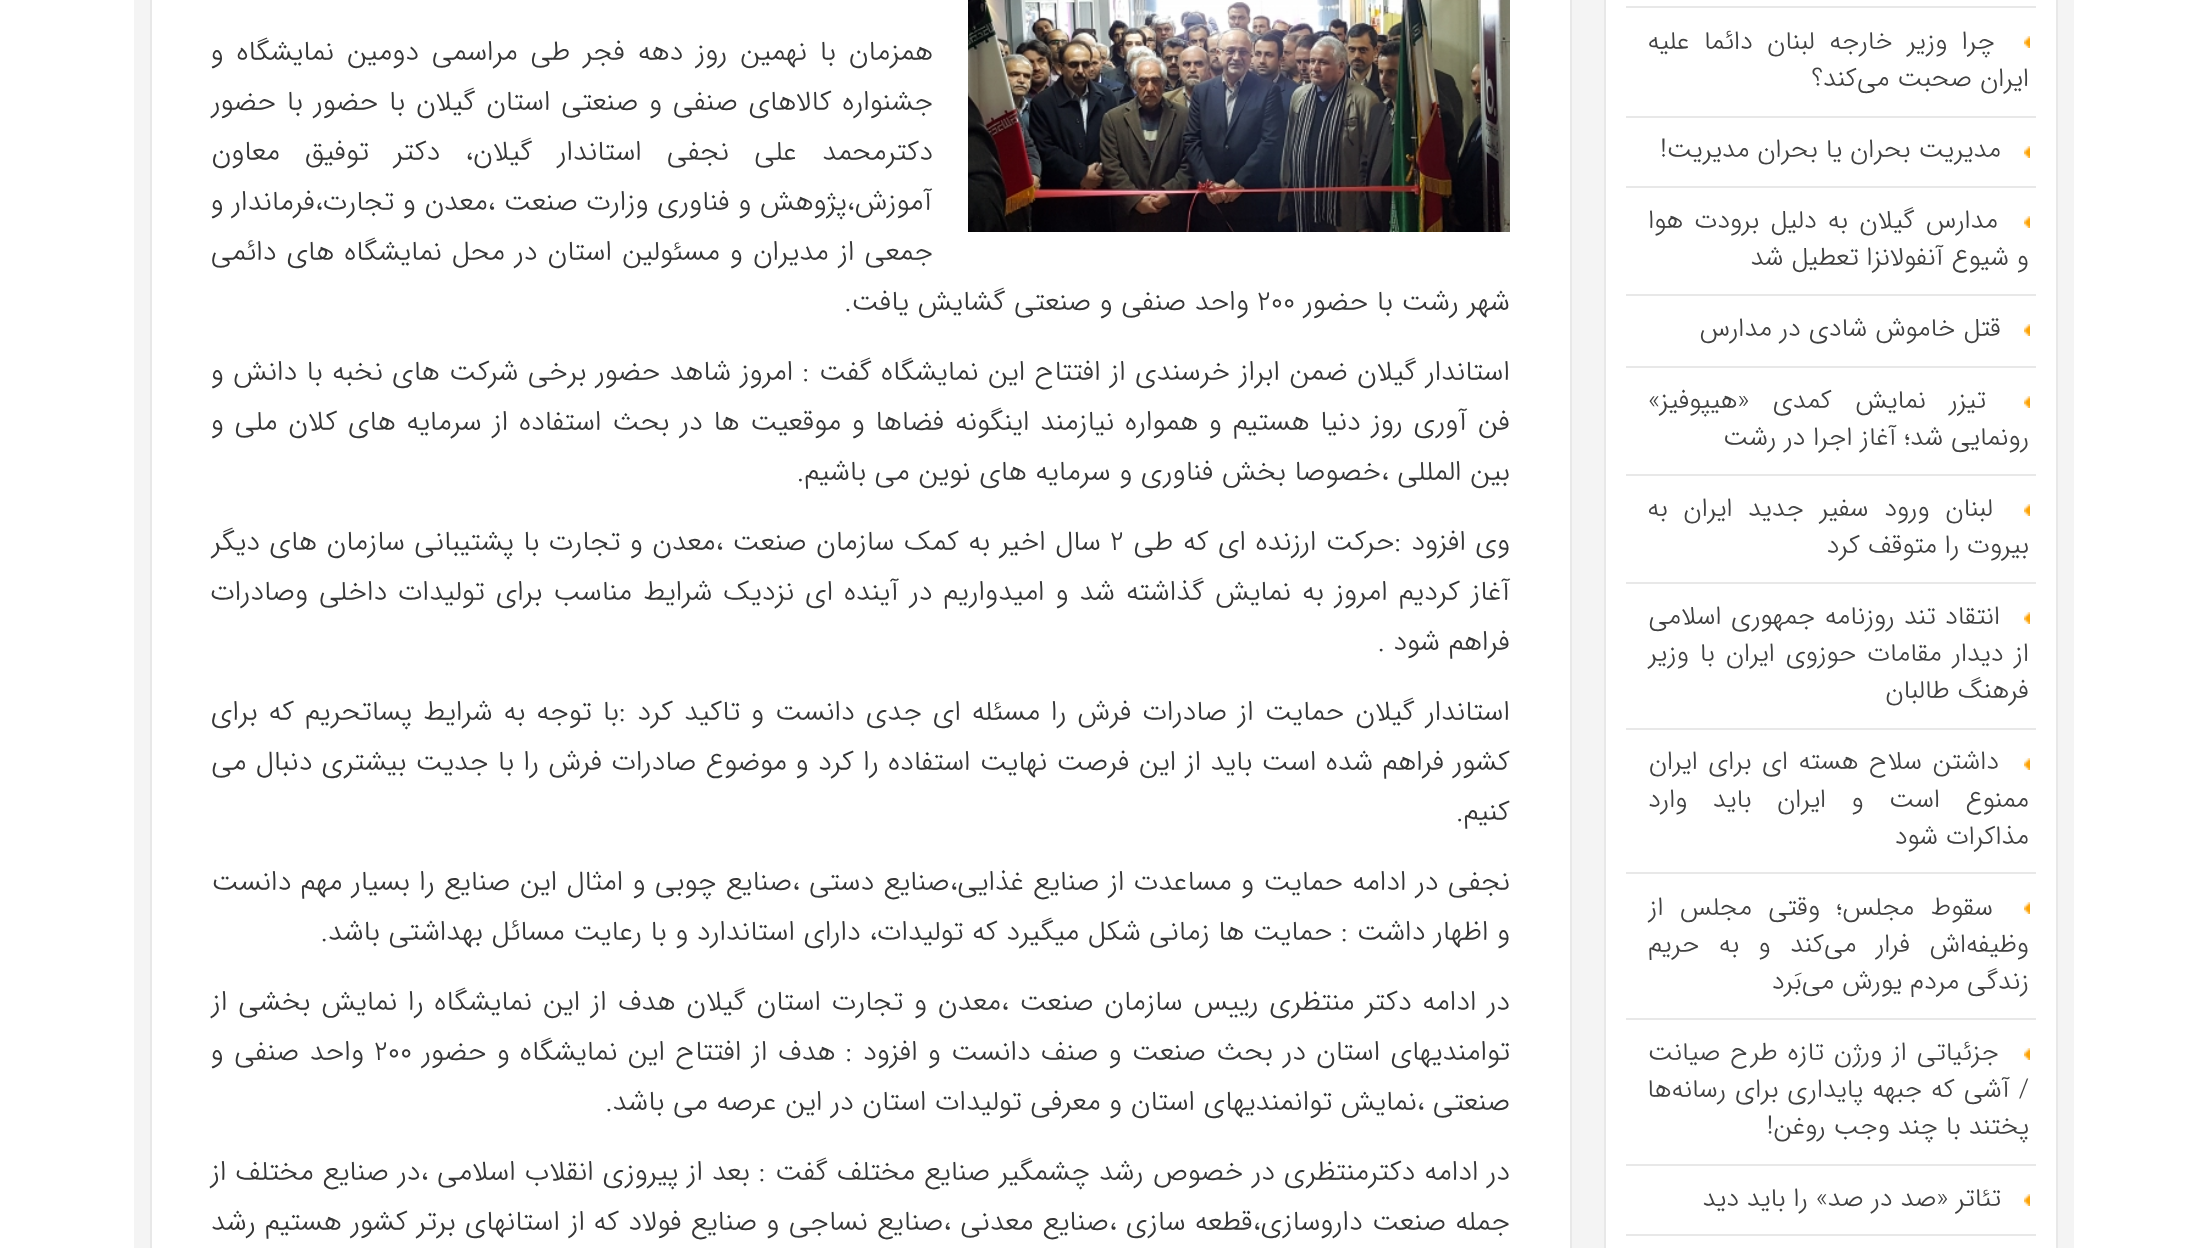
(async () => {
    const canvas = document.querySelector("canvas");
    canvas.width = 2205;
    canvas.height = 1248;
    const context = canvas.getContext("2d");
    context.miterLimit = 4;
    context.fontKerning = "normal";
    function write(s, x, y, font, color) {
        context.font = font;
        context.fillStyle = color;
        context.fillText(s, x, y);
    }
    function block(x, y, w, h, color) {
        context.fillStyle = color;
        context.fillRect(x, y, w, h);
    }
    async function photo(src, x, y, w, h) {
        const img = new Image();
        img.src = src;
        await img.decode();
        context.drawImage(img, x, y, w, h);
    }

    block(0, 0, 2205, 1248, "rgb(255, 255, 255)");
    block(134, 0, 1940, 1248, "rgb(244, 244, 244)");
    block(1606, 0, 450, 1248, "rgb(255, 255, 255)");
    block(2056, 0, 2, 1248, "rgb(232, 232, 232)");
    block(1604, 0, 2, 1248, "rgb(232, 232, 232)");
    block(1626, 6, 410, 2, "rgb(232, 232, 232)");
    block(1626, 116, 410, 2, "rgb(232, 232, 232)");
    await photo("media/1.png", 2024, 36, 6, 12);
    context.wordSpacing = "6.5px";
    context.direction = "rtl";
    write("چرا وزیر خارجه لبنان دائما علیه", 1995, 49, "300 26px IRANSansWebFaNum", "rgb(65, 65, 65)");
    context.wordSpacing = "0px";
    write("ایران صحبت می‌کند؟", 2029, 86, "300 26px IRANSansWebFaNum", "rgb(65, 65, 65)");
    block(1626, 186, 410, 2, "rgb(232, 232, 232)");
    await photo("media/1.png", 2024, 146, 6, 12);
    write("مدیریت بحران یا بحران مدیریت!", 2001, 157, "300 26px IRANSansWebFaNum", "rgb(65, 65, 65)");
    block(1626, 294, 410, 2, "rgb(232, 232, 232)");
    await photo("media/1.png", 2024, 216, 6, 12);
    context.wordSpacing = "3.25px";
    write("مدارس گیلان به دلیل برودت هوا", 1998, 228, "300 26px IRANSansWebFaNum", "rgb(65, 65, 65)");
    context.wordSpacing = "0px";
    write("و شیوع آنفولانزا تعطیل شد", 2029, 265, "300 26px IRANSansWebFaNum", "rgb(65, 65, 65)");
    block(1626, 366, 410, 2, "rgb(232, 232, 232)");
    await photo("media/1.png", 2024, 324, 6, 12);
    write("قتل خاموش شادی در مدارس", 2001, 336, "300 26px IRANSansWebFaNum", "rgb(65, 65, 65)");
    block(1626, 474, 410, 2, "rgb(232, 232, 232)");
    await photo("media/1.png", 2024, 396, 6, 12);
    context.wordSpacing = "15.5px";
    write("تیزر نمایش کمدی «هیپوفیز»", 1986, 408, "300 26px IRANSansWebFaNum", "rgb(65, 65, 65)");
    context.wordSpacing = "0px";
    write("رونمایی شد؛ آغاز اجرا در رشت", 2029, 445, "300 26px IRANSansWebFaNum", "rgb(65, 65, 65)");
    block(1626, 582, 410, 2, "rgb(232, 232, 232)");
    await photo("media/1.png", 2024, 504, 6, 12);
    context.wordSpacing = "7.75px";
    write("لبنان ورود سفیر جدید ایران به", 1993, 516, "300 26px IRANSansWebFaNum", "rgb(65, 65, 65)");
    context.wordSpacing = "0px";
    write("بیروت را متوقف کرد", 2029, 553, "300 26px IRANSansWebFaNum", "rgb(65, 65, 65)");
    block(1626, 728, 410, 2, "rgb(232, 232, 232)");
    await photo("media/1.png", 2024, 612, 6, 12);
    context.wordSpacing = "1.5px";
    write("انتقاد تند روزنامه جمهوری اسلامی", 2000, 624, "300 26px IRANSansWebFaNum", "rgb(65, 65, 65)");
    context.wordSpacing = "3px";
    write("از دیدار مقامات حوزوی ایران با وزیر", 2029, 661, "300 26px IRANSansWebFaNum", "rgb(65, 65, 65)");
    context.wordSpacing = "0px";
    write("فرهنگ طالبان", 2029, 698, "300 26px IRANSansWebFaNum", "rgb(65, 65, 65)");
    block(1626, 872, 410, 2, "rgb(232, 232, 232)");
    await photo("media/1.png", 2024, 758, 6, 12);
    context.wordSpacing = "2.5px";
    write("داشتن سلاح هسته ای برای ایران", 1999, 769, "300 26px IRANSansWebFaNum", "rgb(65, 65, 65)");
    context.wordSpacing = "17.5px";
    write("ممنوع است و ایران باید وارد", 2029, 807, "300 26px IRANSansWebFaNum", "rgb(65, 65, 65)");
    context.wordSpacing = "0px";
    write("مذاکرات شود", 2029, 844, "300 26px IRANSansWebFaNum", "rgb(65, 65, 65)");
    block(1626, 1018, 410, 2, "rgb(232, 232, 232)");
    await photo("media/1.png", 2024, 902, 6, 12);
    context.wordSpacing = "8.5px";
    write("سقوط مجلس؛ وقتی مجلس از", 1993, 915, "300 26px IRANSansWebFaNum", "rgb(65, 65, 65)");
    context.wordSpacing = "11.5px";
    write("وظیفه‌اش فرار می‌کند و به حریم", 2029, 952, "300 26px IRANSansWebFaNum", "rgb(65, 65, 65)");
    context.wordSpacing = "0px";
    write("زندگی مردم یورش می‌بَرد", 2029, 989, "300 26px IRANSansWebFaNum", "rgb(65, 65, 65)");
    block(1626, 1164, 410, 2, "rgb(232, 232, 232)");
    await photo("media/1.png", 2024, 1048, 6, 12);
    context.wordSpacing = "2px";
    write("جزئیاتی از ورژن تازه طرح صیانت", 1999, 1060, "300 26px IRANSansWebFaNum", "rgb(65, 65, 65)");
    context.wordSpacing = "1px";
    write("/ آشی که جبهه پایداری برای رسانه‌ها", 2029, 1097, "300 26px IRANSansWebFaNum", "rgb(65, 65, 65)");
    context.wordSpacing = "0px";
    write("پختند با چند وجب روغن!", 2029, 1134, "300 26px IRANSansWebFaNum", "rgb(65, 65, 65)");
    block(1626, 1234, 410, 2, "rgb(232, 232, 232)");
    await photo("media/1.png", 2024, 1194, 6, 12);
    write("تئاتر «صد در صد» را باید دید", 2001, 1206, "300 26px IRANSansWebFaNum", "rgb(65, 65, 65)");
    block(152, 0, 1418, 1248, "rgb(255, 255, 255)");
    context.fillStyle = "rgb(232, 232, 232)";
    context.beginPath();
    context.moveTo(1572, -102);
    context.lineTo(1572, 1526);
    context.lineTo(1570, 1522);
    context.lineTo(1570, -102);
    context.closePath();
    context.fill();
    context.beginPath();
    context.moveTo(150, 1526);
    context.lineTo(150, -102);
    context.lineTo(152, -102);
    context.lineTo(152, 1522);
    context.closePath();
    context.fill();
    await photo("media/2.png", 968, 0, 542, 232);
    context.wordSpacing = "4.25px";
    write("همزمان با نهمین روز دهه فجر طی مراسمی دومین نمایشگاه و", 933, 60, "300 28px IRANSansWebFaNum", "rgb(54, 54, 54)");
    context.wordSpacing = "2.2px";
    write("جشنواره کالاهای صنفی و صنعتی استان گیلان با حضور", 933, 110, "300 28px IRANSansWebFaNum", "rgb(54, 54, 54)");
    write("با حضور", 303, 110, "300 28px IRANSansWebFaNum", "rgb(54, 54, 54)");
    context.wordSpacing = "17px";
    write("دکترمحمد علی", 933, 160, "300 28px IRANSansWebFaNum", "rgb(54, 54, 54)");
    context.wordSpacing = "16.5px";
    write("نجفی استاندار گیلان، دکتر توفیق معاون", 729, 160, "300 28px IRANSansWebFaNum", "rgb(54, 54, 54)");
    context.wordSpacing = "0px";
    write("آموزش،پژوهش و فناوری وزارت صنعت ،معدن و تجارت،فرماندار و", 932, 210, "300 28px IRANSansWebFaNum", "rgb(54, 54, 54)");
    context.wordSpacing = "1.5px";
    write("جمعی از مدیران و مسئولین استان در محل نمایشگاه های دائمی", 933, 260, "300 28px IRANSansWebFaNum", "rgb(54, 54, 54)");
    context.wordSpacing = "0px";
    write("شهر رشت", 1510, 310, "300 28px IRANSansWebFaNum", "rgb(54, 54, 54)");
    write("با حضور", 1393, 310, "300 28px IRANSansWebFaNum", "rgb(54, 54, 54)");
    context.direction = "ltr";
    write("200", 1257, 310, "300 28px IRANSansWebFaNum", "rgb(54, 54, 54)");
    context.direction = "rtl";
    write("واحد صنفی و صنعتی گشایش یافت.", 1249, 310, "300 28px IRANSansWebFaNum", "rgb(54, 54, 54)");
    context.wordSpacing = "0.7px";
    write("استاندار گیلان ضمن ابراز خرسندی از افتتاح این نمایشگاه گفت : امروز شاهد حضور برخی شرکت های نخبه با دانش و", 1510, 380, "300 28px IRANSansWebFaNum", "rgb(54, 54, 54)");
    context.wordSpacing = "2.2px";
    write("فن آوری روز دنیا هستیم و همواره نیازمند اینگونه فضاها و موقعیت ها در بحث استفاده از سرمایه های کلان ملی و", 1510, 430, "300 28px IRANSansWebFaNum", "rgb(54, 54, 54)");
    context.wordSpacing = "0px";
    write("بین المللی ،خصوصا بخش فناوری و سرمایه های نوین می باشیم.", 1510, 480, "300 28px IRANSansWebFaNum", "rgb(54, 54, 54)");
    context.wordSpacing = "0.9px";
    write("وی افزود :حرکت ارزنده ای که طی", 1510, 550, "300 28px IRANSansWebFaNum", "rgb(54, 54, 54)");
    context.wordSpacing = "0px";
    context.direction = "ltr";
    write("2", 1110, 550, "300 28px IRANSansWebFaNum", "rgb(54, 54, 54)");
    context.wordSpacing = "0.9px";
    context.direction = "rtl";
    write("سال اخیر به کمک سازمان صنعت ،معدن و تجارت با پشتیبانی سازمان های دیگر", 1101, 550, "300 28px IRANSansWebFaNum", "rgb(54, 54, 54)");
    context.wordSpacing = "2.4px";
    write("آغاز کردیم امروز به نمایش گذاشته شد و امیدواریم در آینده ای نزدیک شرایط مناسب برای تولیدات داخلی وصادرات", 1510, 600, "300 28px IRANSansWebFaNum", "rgb(54, 54, 54)");
    context.wordSpacing = "0px";
    write("فراهم شود .", 1510, 650, "300 28px IRANSansWebFaNum", "rgb(54, 54, 54)");
    context.wordSpacing = "2.4px";
    write("استاندار گیلان حمایت از صادرات فرش را مسئله ای جدی دانست و تاکید کرد :با توجه به شرایط پساتحریم که برای", 1510, 720, "300 28px IRANSansWebFaNum", "rgb(54, 54, 54)");
    context.wordSpacing = "0.75px";
    write("کشور فراهم شده است باید از این فرصت نهایت استفاده را کرد و", 1510, 770, "300 28px IRANSansWebFaNum", "rgb(54, 54, 54)");
    write("موضوع صادرات فرش را با جدیت بیشتری دنبال می", 787, 770, "300 28px IRANSansWebFaNum", "rgb(54, 54, 54)");
    context.wordSpacing = "0px";
    write("کنیم.", 1510, 820, "300 28px IRANSansWebFaNum", "rgb(54, 54, 54)");
    context.wordSpacing = "0.8px";
    write("نجفی در ادامه حمایت و مساعدت از صنایع غذایی،صنایع دستی ،صنایع چوبی و امثال این صنایع را بسیار مهم دانست", 1510, 890, "300 28px IRANSansWebFaNum", "rgb(54, 54, 54)");
    context.wordSpacing = "0px";
    write("و اظهار داشت : حمایت ها زمانی", 1510, 940, "300 28px IRANSansWebFaNum", "rgb(54, 54, 54)");
    write("شکل میگیرد که تولیدات، دارای استاندارد و با رعایت مسائل بهداشتی باشد.", 1141, 940, "300 28px IRANSansWebFaNum", "rgb(54, 54, 54)");
    context.wordSpacing = "2.25px";
    write("در ادامه دکتر منتظری رییس سازمان صنعت ،معدن و تجارت استان گیلان هدف از این نمایشگاه را نمایش بخشی از", 1510, 1010, "300 28px IRANSansWebFaNum", "rgb(54, 54, 54)");
    context.wordSpacing = "1.6px";
    write("توامندیهای استان در بحث صنعت و صنف دانست و افزود : هدف از افتتاح این نمایشگاه و حضور", 1510, 1060, "300 28px IRANSansWebFaNum", "rgb(54, 54, 54)");
    context.wordSpacing = "0px";
    context.direction = "ltr";
    write("200", 374, 1060, "300 28px IRANSansWebFaNum", "rgb(54, 54, 54)");
    context.wordSpacing = "2px";
    context.direction = "rtl";
    write("واحد صنفی و", 364, 1060, "300 28px IRANSansWebFaNum", "rgb(54, 54, 54)");
    context.wordSpacing = "0px";
    write("صنعتی ،نمایش توانمندیهای استان و معرفی تولیدات استان در این عرصه", 1510, 1110, "300 28px IRANSansWebFaNum", "rgb(54, 54, 54)");
    write("می باشد.", 708, 1110, "300 28px IRANSansWebFaNum", "rgb(54, 54, 54)");
    context.wordSpacing = "0.4px";
    write("در ادامه دکتر", 1510, 1180, "300 28px IRANSansWebFaNum", "rgb(54, 54, 54)");
    write("منتظری در خصوص رشد چشمگیر صنایع مختلف گفت : بعد از پیروزی انقلاب اسلامی ،در صنایع مختلف از", 1369, 1180, "300 28px IRANSansWebFaNum", "rgb(54, 54, 54)");
    context.wordSpacing = "0px";
    write("جمله", 1510, 1230, "300 28px IRANSansWebFaNum", "rgb(54, 54, 54)");
    context.wordSpacing = "0.75px";
    write("صنعت داروسازی،قطعه سازی ،صنایع معدنی ،صنایع نساجی و صنایع فولاد که", 1446, 1230, "300 28px IRANSansWebFaNum", "rgb(54, 54, 54)");
    context.wordSpacing = "0.7px";
    write("از استانهای برتر کشور هستیم رشد", 585, 1230, "300 28px IRANSansWebFaNum", "rgb(54, 54, 54)");
})();
